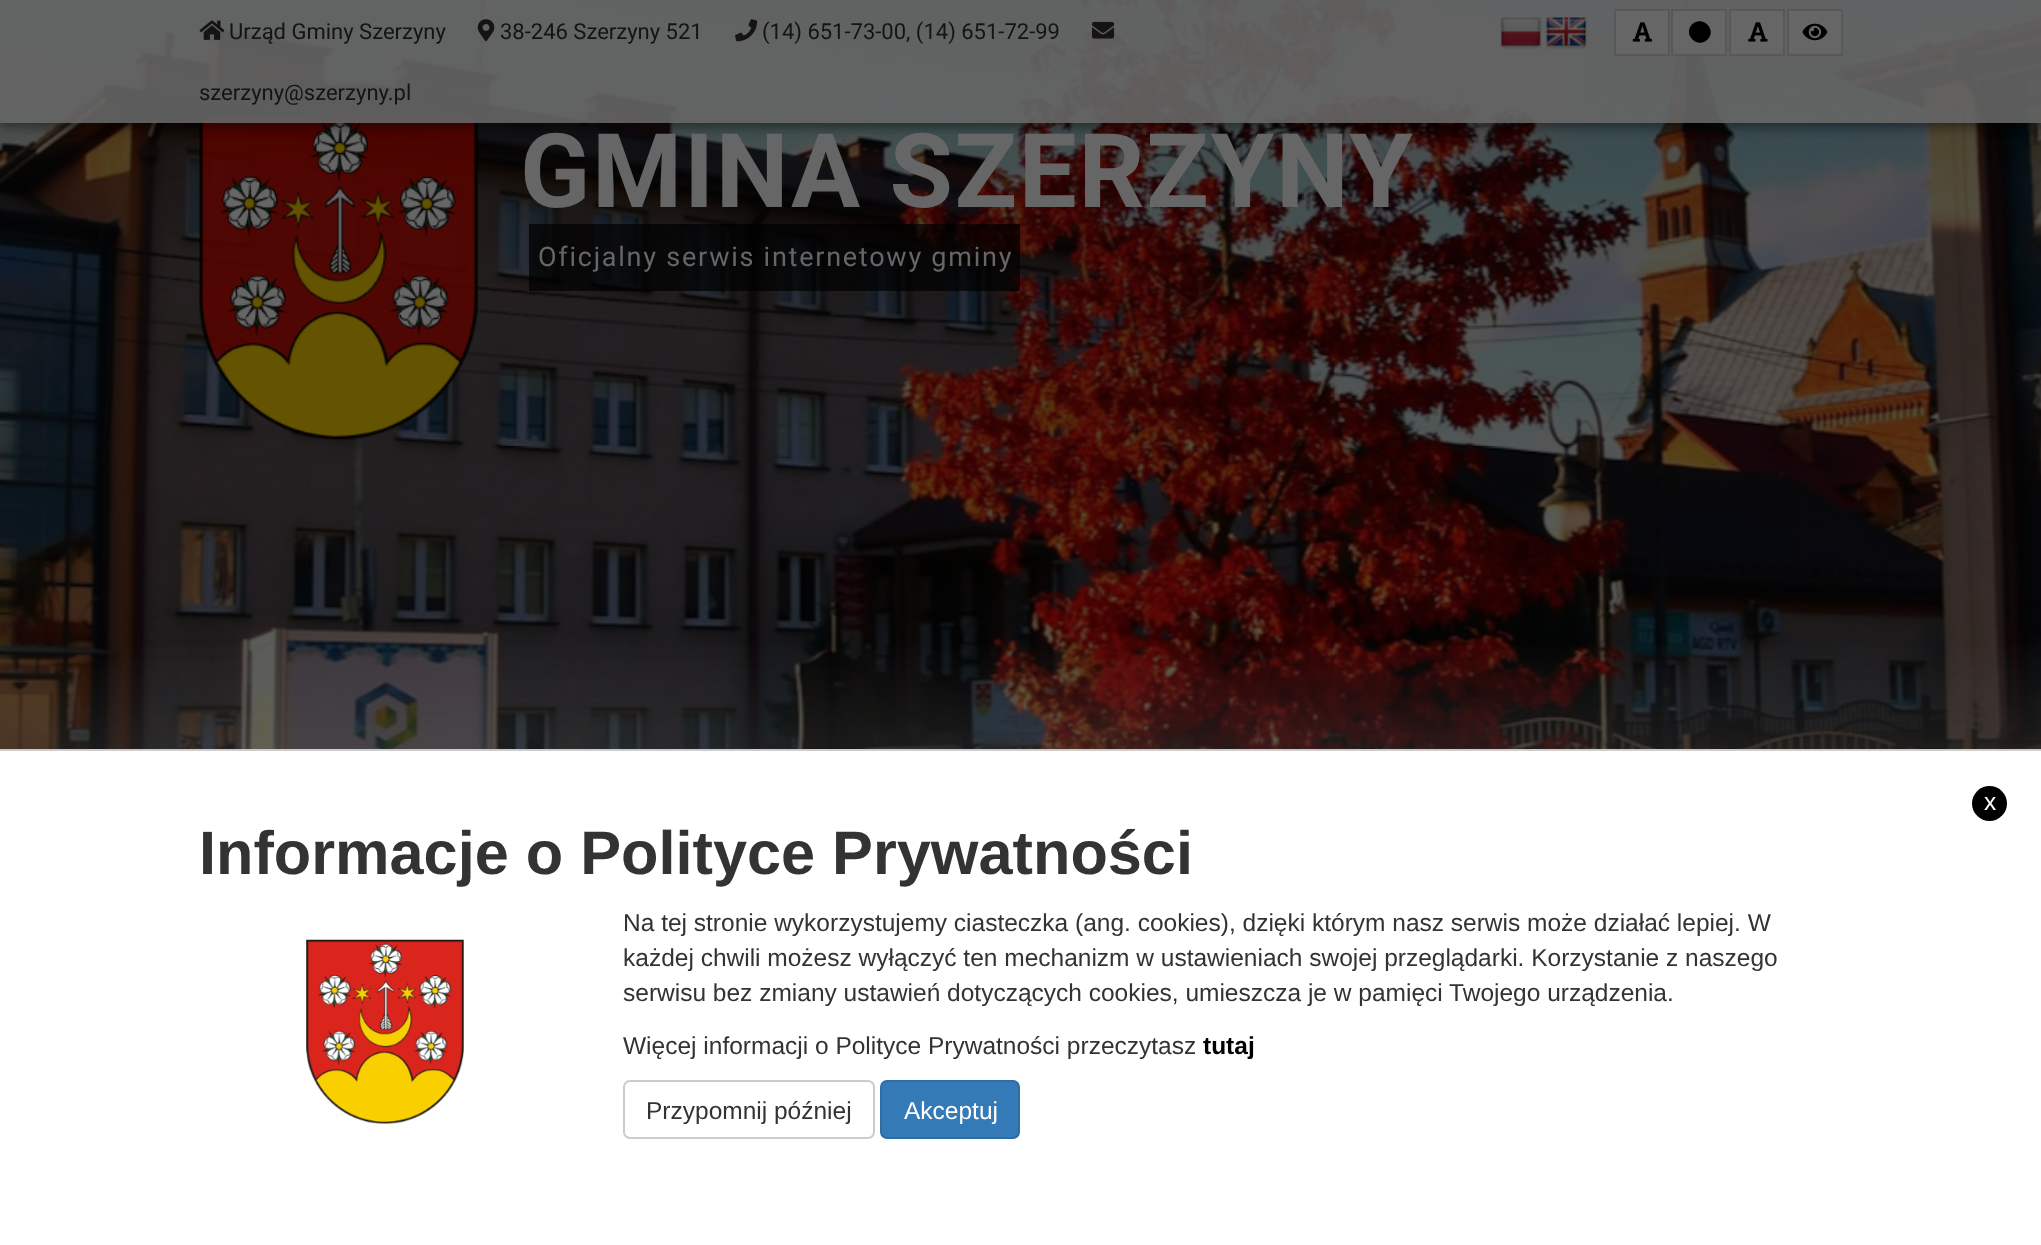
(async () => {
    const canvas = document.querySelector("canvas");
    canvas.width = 2041;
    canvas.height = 1245;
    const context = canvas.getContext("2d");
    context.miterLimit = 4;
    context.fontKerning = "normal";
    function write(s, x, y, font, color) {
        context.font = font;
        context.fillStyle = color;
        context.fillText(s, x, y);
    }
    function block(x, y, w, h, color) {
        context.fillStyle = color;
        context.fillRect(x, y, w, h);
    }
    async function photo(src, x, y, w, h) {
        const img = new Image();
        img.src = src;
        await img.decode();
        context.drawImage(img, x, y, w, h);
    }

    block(0, 0, 2041, 1245, "rgb(255, 255, 255)");
    await photo("media/1.png", 0, 0, 2041, 749);
    await photo("media/2.png", 0, 645, 2041, 104);
    await photo("media/12.png", 199, 113, 279, 327);
    context.save();
    context.beginPath();
    context.moveTo(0, 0);
    context.lineTo(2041, 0);
    context.lineTo(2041, 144);
    context.lineTo(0, 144);
    context.closePath();
    context.moveTo(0, 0);
    context.lineTo(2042, 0);
    context.lineTo(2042, 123);
    context.lineTo(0, 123);
    context.closePath();
    context.clip("evenodd");
    context.fillStyle = "rgba(0, 0, 0, 0.23)";
    context.filter = "blur(5px)";
    context.beginPath();
    context.rect(0, 5, 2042, 123);
    context.fill();
    context.filter = "none";
    context.fillStyle = "rgba(0, 0, 0, 0.16)";
    context.filter = "blur(5px)";
    context.beginPath();
    context.rect(0, 5, 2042, 123);
    context.fill();
    context.filter = "none";
    context.restore();
    block(0, 0, 2041, 123, "rgba(102, 102, 102, 0.9)");
    await photo("media/3.png", 199, 20, 26, 20);
    write("Urząd Gminy Szerzyny", 229, 39, "22px Roboto", "rgb(20, 20, 20)");
    await photo("media/4.png", 477, 19, 18, 23);
    write("38-246 Szerzyny 521", 500, 39, "22px Roboto", "rgb(20, 20, 20)");
    await photo("media/5.png", 735, 19, 23, 23);
    write("(14) 651-73-00, (14) 651-72-99", 762, 39, "22px Roboto", "rgb(20, 20, 20)");
    await photo("media/6.png", 1092, 21, 23, 18);
    write("szerzyny@szerzyny.pl", 199, 100, "22px Roboto", "rgb(20, 20, 20)");
    await photo("media/7.png", 1500, 17, 42, 32);
    await photo("media/8.png", 1545, 17, 43, 32);
    context.fillStyle = "rgb(102, 102, 102)";
    context.beginPath();
    context.rect(1615, 10, 54, 45);
    context.fill();
    context.strokeStyle = "rgb(88, 88, 88)";
    context.lineWidth = 2;
    context.stroke();
    await photo("media/9.png", 1632, 22, 21, 20);
    context.beginPath();
    context.rect(1672, 10, 54, 45);
    context.fill();
    context.stroke();
    context.fillStyle = "rgb(0, 0, 0)";
    context.beginPath();
    context.moveTo(1692, 24.5);
    context.bezierCurveTo(1702, 14.5, 1717.5, 29.5, 1707.5, 39.5);
    context.bezierCurveTo(1697.5, 49.5, 1682.5, 34.5, 1692, 24.5);
    context.closePath();
    context.fill();
    context.fillStyle = "rgb(102, 102, 102)";
    context.beginPath();
    context.rect(1730, 10, 54, 45);
    context.fill();
    context.stroke();
    await photo("media/10.png", 1748, 22, 20, 20);
    context.beginPath();
    context.rect(1788, 10, 54, 45);
    context.fill();
    context.stroke();
    await photo("media/11.png", 1802, 23, 26, 18);
    context.letterSpacing = "1.75px";
    write("GMINA SZERZYNY", 520, 207, "bold 103px Roboto", "rgb(102, 102, 102)");
    block(529, 224, 491, 67, "rgba(0, 0, 0, 0.7)");
    write("Oficjalny serwis internetowy gminy", 538, 266, "27px Roboto", "rgb(102, 102, 102)");
    block(0, 749, 2041, 2, "rgb(204, 204, 204)");
    context.fillStyle = "rgb(0, 0, 0)";
    context.beginPath();
    context.arc(1989.5, 803.5, 17.5, 0, Math.PI * 2);
    context.fill();
    context.letterSpacing = "0px";
    write("x", 1984, 810, "24.5px Liberation Sans", "rgb(255, 255, 255)");
    write("Informacje o Polityce Prywatności", 199, 874, "bold 61.25px Liberation Sans", "rgb(51, 51, 51)");
    await photo("media/13.png", 306, 939, 158, 185);
    write("Na tej stronie wykorzystujemy ciasteczka (ang. cookies), dzięki którym nasz serwis może działać lepiej. W", 623, 931, "24.5px Liberation Sans", "rgb(51, 51, 51)");
    write("każdej chwili możesz wyłączyć ten mechanizm w ustawieniach swojej przeglądarki. Korzystanie z naszego", 623, 966, "24.5px Liberation Sans", "rgb(51, 51, 51)");
    write("serwisu bez zmiany ustawień dotyczących cookies, umieszcza je w pamięci Twojego urządzenia.", 623, 1001, "24.5px Liberation Sans", "rgb(51, 51, 51)");
    write("Więcej informacji o Polityce Prywatności przeczytasz", 623, 1054, "24.5px Liberation Sans", "rgb(51, 51, 51)");
    write("tutaj", 1203, 1054, "bold 24.5px Liberation Sans", "rgb(0, 0, 0)");
    context.beginPath();
    context.roundRect(624, 1081, 250, 57, 6);
    context.strokeStyle = "rgb(204, 204, 204)";
    context.stroke();
    write("Przypomnij później", 646, 1119, "24.5px Liberation Sans", "rgb(51, 51, 51)");
    context.fillStyle = "rgb(51, 122, 183)";
    context.beginPath();
    context.roundRect(881, 1081, 138, 57, 6);
    context.fill();
    context.strokeStyle = "rgb(46, 109, 164)";
    context.stroke();
    write("Akceptuj", 904, 1119, "24.5px Liberation Sans", "rgb(255, 255, 255)");
})();
